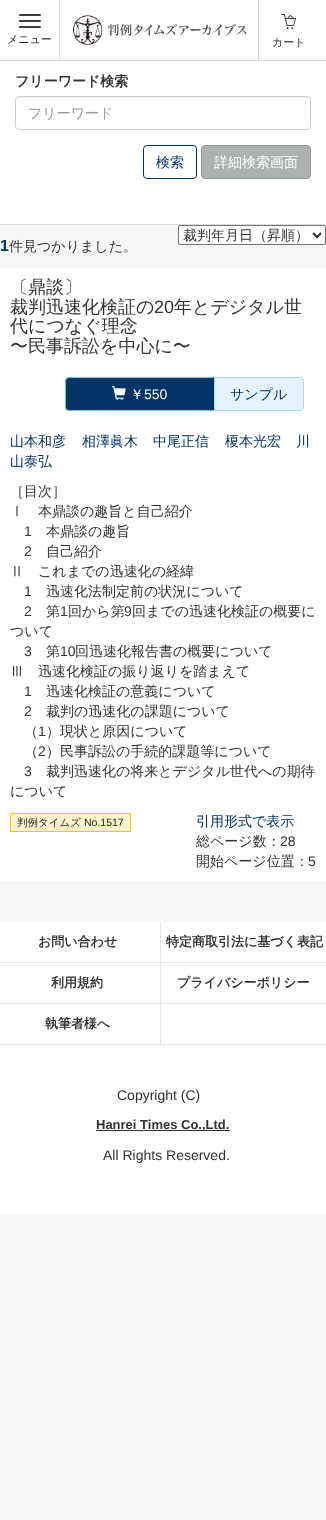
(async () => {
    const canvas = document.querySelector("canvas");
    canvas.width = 326;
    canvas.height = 1520;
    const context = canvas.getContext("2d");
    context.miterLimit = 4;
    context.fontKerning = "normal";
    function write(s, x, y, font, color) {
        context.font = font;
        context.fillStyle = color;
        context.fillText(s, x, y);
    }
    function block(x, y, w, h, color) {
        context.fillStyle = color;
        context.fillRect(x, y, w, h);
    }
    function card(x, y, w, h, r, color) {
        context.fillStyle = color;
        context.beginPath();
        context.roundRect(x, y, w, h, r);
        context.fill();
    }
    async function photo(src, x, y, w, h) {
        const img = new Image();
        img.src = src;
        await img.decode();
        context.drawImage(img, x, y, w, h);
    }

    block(0, 0, 326, 1520, "rgb(245, 246, 245)");
    block(0, 0, 326, 60, "rgb(255, 255, 255)");
    block(59, 0, 1, 60, "rgb(222, 222, 222)");
    card(19, 14, 22, 2, 1, "rgb(60, 64, 66)");
    card(19, 20, 22, 2, 1, "rgb(60, 64, 66)");
    card(19, 26, 22, 2, 1, "rgb(60, 64, 66)");
    write("メニュー", 7, 43, "500 11px WenQuanYi Zen Hei", "rgb(34, 34, 34)");
    await photo("media/1.png", 73, 15, 174, 30);
    block(258, 0, 1, 60, "rgb(213, 213, 213)");
    await photo("media/2.png", 281, 14, 15, 15);
    write("カート", 272, 46, "500 11px WenQuanYi Zen Hei", "rgb(34, 34, 34)");
    block(0, 61, 326, 163, "rgb(255, 255, 255)");
    block(0, 60, 326, 1, "rgb(218, 218, 218)");
    write("フリーワード検索", 15, 86, "bold 14px WenQuanYi Zen Hei", "rgb(51, 51, 51)");
    context.fillStyle = "rgb(236, 236, 236)";
    context.beginPath();
    context.moveTo(19, 98);
    context.lineTo(307, 98);
    context.bezierCurveTo(309, 98, 310, 99, 310, 101);
    context.lineTo(309, 98);
    context.lineTo(308, 97);
    context.lineTo(19, 97);
    context.bezierCurveTo(17, 97, 16, 99, 16, 101);
    context.bezierCurveTo(16, 99, 17, 98, 19, 98);
    context.closePath();
    context.fill();
    context.beginPath();
    context.roundRect(15.5, 96.5, 295, 33, 3.5);
    context.strokeStyle = "rgb(204, 204, 204)";
    context.stroke();
    write("フリーワード", 28, 118, "500 14px WenQuanYi Zen Hei", "rgb(153, 153, 153)");
    context.beginPath();
    context.roundRect(143.5, 145.5, 53, 33, 3.5);
    context.strokeStyle = "rgb(0, 51, 102)";
    context.stroke();
    write("検索", 156, 167, "500 14px WenQuanYi Zen Hei", "rgb(0, 51, 102)");
    context.fillStyle = "rgb(172, 178, 178)";
    context.beginPath();
    context.roundRect(201.5, 145.5, 109, 33, 3.5);
    context.fill();
    context.strokeStyle = "rgb(148, 153, 153)";
    context.stroke();
    write("詳細検索画面", 214, 167, "500 14px WenQuanYi Zen Hei", "rgb(255, 255, 255)");
    block(0, 224, 326, 1, "rgb(218, 218, 218)");
    context.fillStyle = "rgb(255, 255, 255)";
    context.beginPath();
    context.roundRect(178.5, 225.5, 147, 19, 1.5);
    context.fill();
    context.strokeStyle = "rgb(118, 118, 118)";
    context.stroke();
    context.beginPath();
    context.moveTo(313, 233);
    context.lineTo(317, 237);
    context.lineTo(321, 233);
    context.strokeStyle = "rgb(51, 51, 51)";
    context.lineWidth = 2;
    context.stroke();
    write("裁判年月日（昇順）", 183, 240, "500 14px WenQuanYi Zen Hei", "rgb(51, 51, 51)");
    write("1", 0, 251, "bold 16px Liberation Sans", "rgb(0, 51, 102)");
    write("件見つかりました。", 9, 251, "500 14px WenQuanYi Zen Hei", "rgb(51, 51, 51)");
    block(0, 268, 326, 613, "rgb(255, 255, 255)");
    write("〔鼎談〕", 10, 293, "500 18px WenQuanYi Zen Hei", "rgb(51, 51, 51)");
    write("裁判迅速化検証の", 10, 313, "500 18px WenQuanYi Zen Hei", "rgb(51, 51, 51)");
    write("20", 154, 313, "18px Liberation Sans", "rgb(51, 51, 51)");
    write("年とデジタル世", 174, 313, "500 18px WenQuanYi Zen Hei", "rgb(51, 51, 51)");
    write("代につなぐ理念", 10, 332, "500 18px WenQuanYi Zen Hei", "rgb(51, 51, 51)");
    write("〜民事訴訟を中心に〜", 10, 352, "500 18px WenQuanYi Zen Hei", "rgb(51, 51, 51)");
    context.fillStyle = "rgb(0, 51, 102)";
    context.beginPath();
    context.roundRect(65.5, 377.5, 149, 33, [3.5, 0, 0, 3.5]);
    context.fill();
    context.strokeStyle = "rgb(101, 202, 205)";
    context.lineWidth = 1;
    context.stroke();
    await photo("media/3.png", 112, 386, 14, 14);
    write("￥", 130, 399, "500 14px WenQuanYi Zen Hei", "rgb(255, 255, 255)");
    write("550", 144, 399, "14px Liberation Sans", "rgb(255, 255, 255)");
    context.fillStyle = "rgb(229, 242, 255)";
    context.beginPath();
    context.roundRect(214.5, 377.5, 89, 33, [0, 3.5, 3.5, 0]);
    context.fill();
    context.strokeStyle = "rgb(173, 216, 230)";
    context.stroke();
    write("サンプル", 230, 399, "500 14px WenQuanYi Zen Hei", "rgb(0, 51, 102)");
    write("山本和彦", 10, 446, "500 14px WenQuanYi Zen Hei", "rgb(0, 51, 102)");
    write("相澤眞木", 82, 446, "500 14px WenQuanYi Zen Hei", "rgb(0, 51, 102)");
    write("中尾正信", 153, 446, "500 14px WenQuanYi Zen Hei", "rgb(0, 51, 102)");
    write("榎本光宏", 225, 446, "500 14px WenQuanYi Zen Hei", "rgb(0, 51, 102)");
    write("川", 296, 446, "500 14px WenQuanYi Zen Hei", "rgb(0, 51, 102)");
    write("山泰弘", 10, 466, "500 14px WenQuanYi Zen Hei", "rgb(0, 51, 102)");
    write("［目次］", 10, 496, "500 14px WenQuanYi Zen Hei", "rgb(51, 51, 51)");
    write("Ⅰ　本鼎談の趣旨と自己紹介", 10, 516, "500 14px WenQuanYi Zen Hei", "rgb(51, 51, 51)");
    write("1", 24, 536, "14px Liberation Sans", "rgb(51, 51, 51)");
    write("本鼎談の趣旨", 46, 536, "500 14px WenQuanYi Zen Hei", "rgb(51, 51, 51)");
    write("2", 24, 556, "14px Liberation Sans", "rgb(51, 51, 51)");
    write("自己紹介", 46, 556, "500 14px WenQuanYi Zen Hei", "rgb(51, 51, 51)");
    write("Ⅱ　これまでの迅速化の経緯", 10, 576, "500 14px WenQuanYi Zen Hei", "rgb(51, 51, 51)");
    write("1", 24, 596, "14px Liberation Sans", "rgb(51, 51, 51)");
    write("迅速化法制定前の状況について", 46, 596, "500 14px WenQuanYi Zen Hei", "rgb(51, 51, 51)");
    write("2", 24, 616, "14px Liberation Sans", "rgb(51, 51, 51)");
    write("第", 46, 616, "500 14px WenQuanYi Zen Hei", "rgb(51, 51, 51)");
    write("1", 60, 616, "14px Liberation Sans", "rgb(51, 51, 51)");
    write("回から第", 68, 616, "500 14px WenQuanYi Zen Hei", "rgb(51, 51, 51)");
    write("9", 124, 616, "14px Liberation Sans", "rgb(51, 51, 51)");
    write("回までの迅速化検証の概要に", 132, 616, "500 14px WenQuanYi Zen Hei", "rgb(51, 51, 51)");
    write("ついて", 10, 636, "500 14px WenQuanYi Zen Hei", "rgb(51, 51, 51)");
    write("3", 24, 656, "14px Liberation Sans", "rgb(51, 51, 51)");
    write("第", 46, 656, "500 14px WenQuanYi Zen Hei", "rgb(51, 51, 51)");
    write("10", 60, 656, "14px Liberation Sans", "rgb(51, 51, 51)");
    write("回迅速化報告書の概要について", 75, 656, "500 14px WenQuanYi Zen Hei", "rgb(51, 51, 51)");
    write("Ⅲ　迅速化検証の振り返りを踏まえて", 10, 676, "500 14px WenQuanYi Zen Hei", "rgb(51, 51, 51)");
    write("1", 24, 696, "14px Liberation Sans", "rgb(51, 51, 51)");
    write("迅速化検証の意義について", 46, 696, "500 14px WenQuanYi Zen Hei", "rgb(51, 51, 51)");
    write("2", 24, 716, "14px Liberation Sans", "rgb(51, 51, 51)");
    write("裁判の迅速化の課題について", 46, 716, "500 14px WenQuanYi Zen Hei", "rgb(51, 51, 51)");
    write("（", 24, 736, "500 14px WenQuanYi Zen Hei", "rgb(51, 51, 51)");
    write("1", 38, 736, "14px Liberation Sans", "rgb(51, 51, 51)");
    write("）現状と原因について", 46, 736, "500 14px WenQuanYi Zen Hei", "rgb(51, 51, 51)");
    write("（", 24, 756, "500 14px WenQuanYi Zen Hei", "rgb(51, 51, 51)");
    write("2", 38, 756, "14px Liberation Sans", "rgb(51, 51, 51)");
    write("）民事訴訟の手続的課題等について", 46, 756, "500 14px WenQuanYi Zen Hei", "rgb(51, 51, 51)");
    write("3", 24, 776, "14px Liberation Sans", "rgb(51, 51, 51)");
    write("裁判迅速化の将来とデジタル世代への期待", 46, 776, "500 14px WenQuanYi Zen Hei", "rgb(51, 51, 51)");
    write("について", 10, 796, "500 14px WenQuanYi Zen Hei", "rgb(51, 51, 51)");
    context.fillStyle = "rgb(255, 244, 205)";
    context.beginPath();
    context.rect(10.5, 813.5, 120, 18);
    context.fill();
    context.strokeStyle = "rgb(247, 198, 20)";
    context.stroke();
    write("判例タイムズ", 17, 826, "500 10.5px WenQuanYi Zen Hei", "rgb(34, 34, 34)");
    write("No.1517", 84, 826, "10.5px Liberation Sans", "rgb(34, 34, 34)");
    write("引用形式で表示", 196, 826, "500 14px WenQuanYi Zen Hei", "rgb(0, 51, 102)");
    write("総ページ数：", 196, 846, "500 14px WenQuanYi Zen Hei", "rgb(51, 51, 51)");
    write("28", 280, 846, "14px Liberation Sans", "rgb(51, 51, 51)");
    write("開始ページ位置：", 196, 866, "500 14px WenQuanYi Zen Hei", "rgb(51, 51, 51)");
    write("5", 308, 866, "14px Liberation Sans", "rgb(51, 51, 51)");
    block(0, 922, 326, 293, "rgb(255, 255, 255)");
    block(160, 922, 1, 122, "rgb(229, 229, 229)");
    block(0, 962, 326, 1, "rgb(229, 229, 229)");
    write("お問い合わせ", 38, 946, "bold 13px WenQuanYi Zen Hei", "rgb(51, 51, 51)");
    write("特定商取引法に基づく表記", 166, 946, "bold 13px WenQuanYi Zen Hei", "rgb(51, 51, 51)");
    block(0, 1003, 326, 1, "rgb(229, 229, 229)");
    write("利用規約", 51, 987, "bold 13px WenQuanYi Zen Hei", "rgb(51, 51, 51)");
    write("プライバシーポリシー", 177, 987, "bold 13px WenQuanYi Zen Hei", "rgb(51, 51, 51)");
    write("執筆者様へ", 45, 1028, "bold 13px WenQuanYi Zen Hei", "rgb(51, 51, 51)");
    block(0, 1044, 326, 1, "rgb(229, 229, 229)");
    write("Copyright (C)", 117, 1100, "14px Liberation Sans", "rgb(51, 51, 51)");
    block(96, 1130, 134, 1, "rgb(51, 51, 51)");
    write("Hanrei Times Co.,Ltd.", 96, 1129, "bold 13px Liberation Sans", "rgb(51, 51, 51)");
    write("All Rights Reserved.", 103, 1160, "14px Liberation Sans", "rgb(51, 51, 51)");
})();
